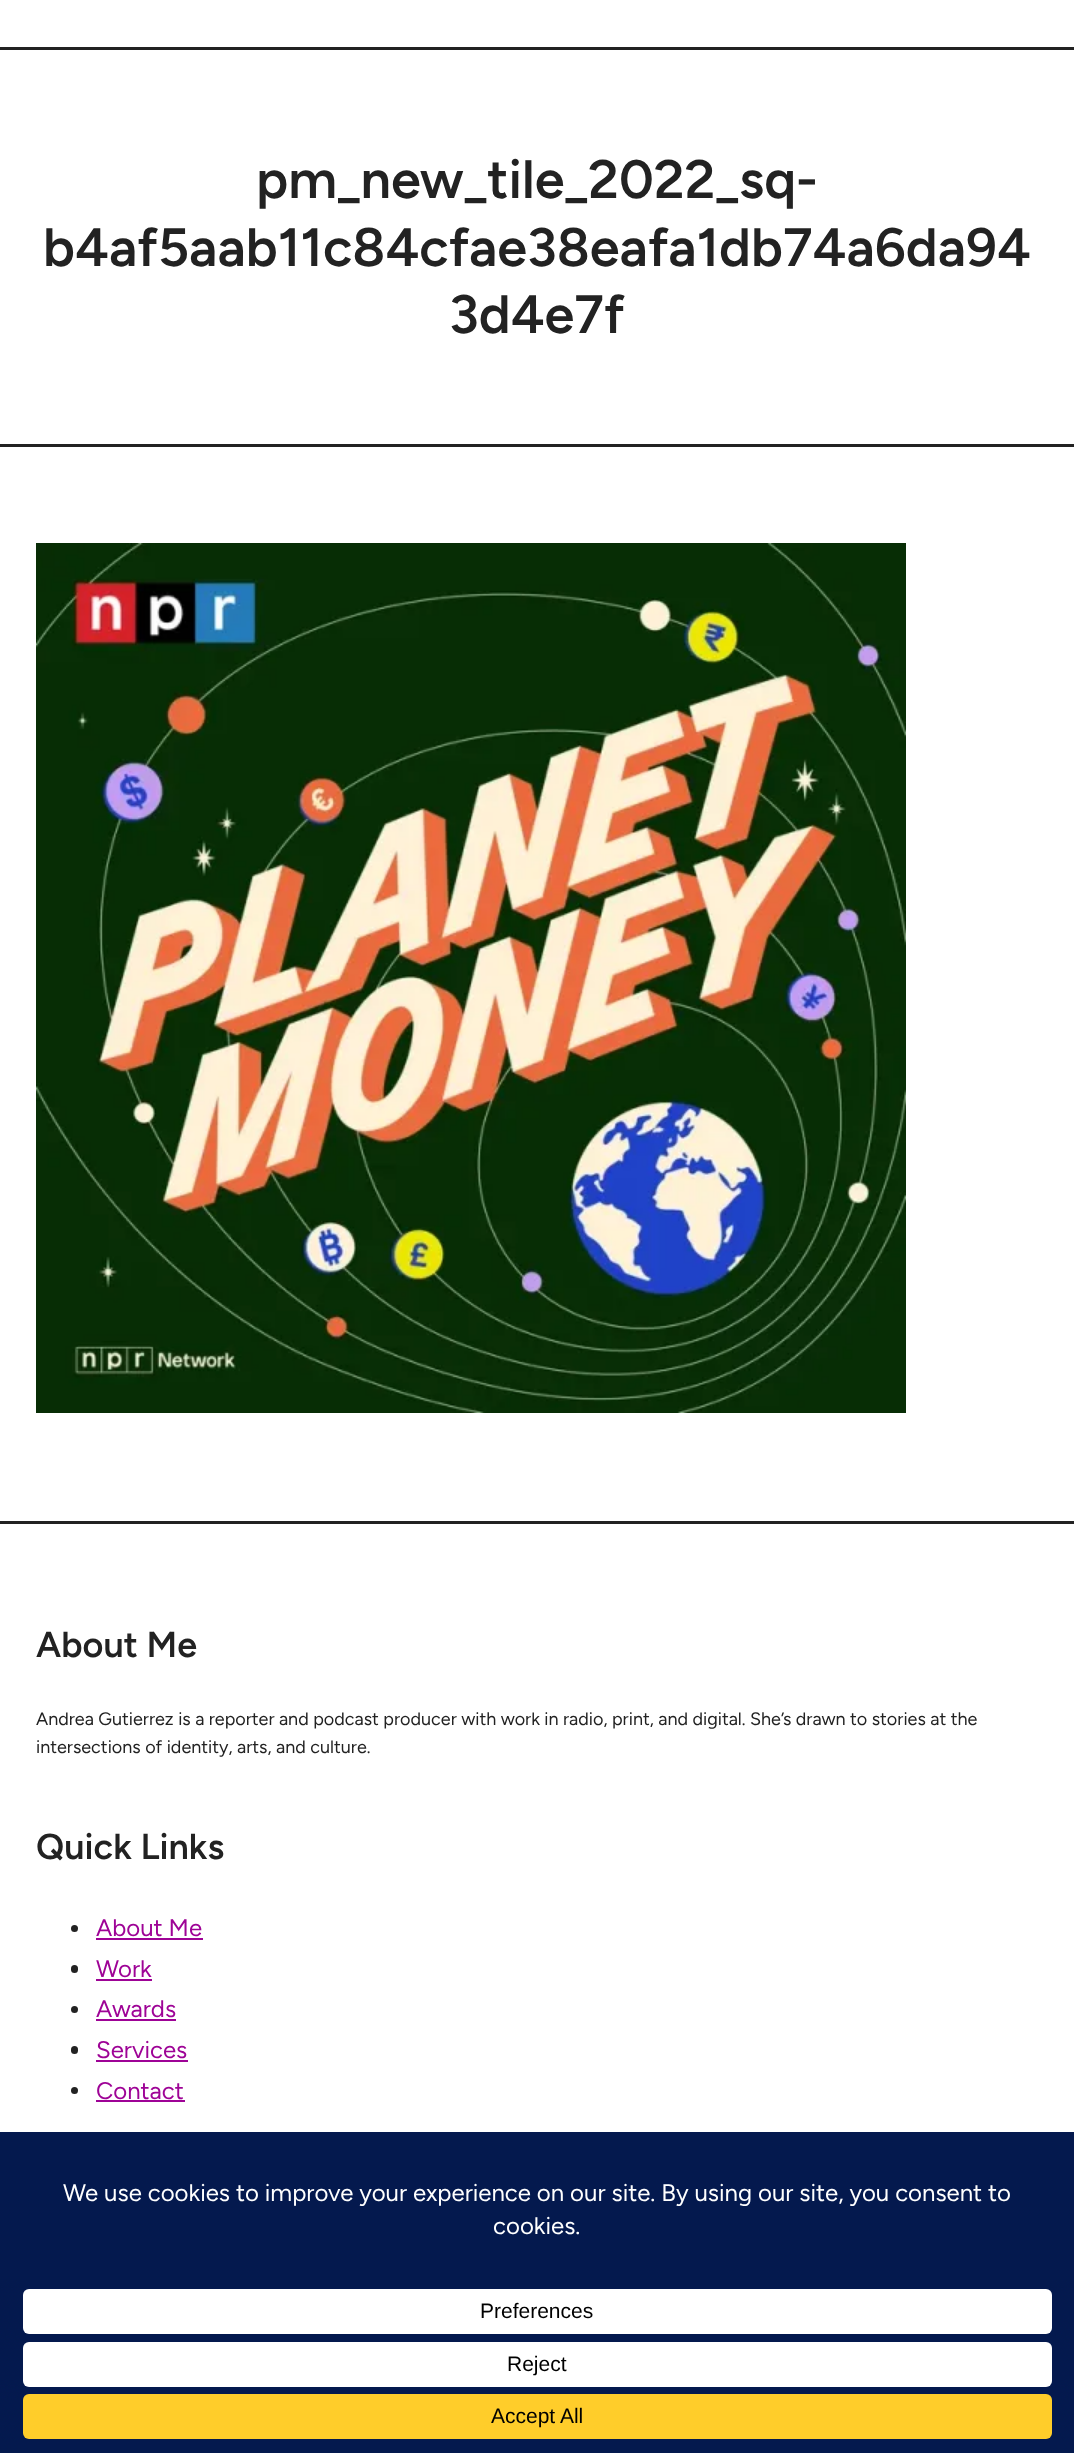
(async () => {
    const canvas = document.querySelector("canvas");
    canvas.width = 1074;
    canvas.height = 2453;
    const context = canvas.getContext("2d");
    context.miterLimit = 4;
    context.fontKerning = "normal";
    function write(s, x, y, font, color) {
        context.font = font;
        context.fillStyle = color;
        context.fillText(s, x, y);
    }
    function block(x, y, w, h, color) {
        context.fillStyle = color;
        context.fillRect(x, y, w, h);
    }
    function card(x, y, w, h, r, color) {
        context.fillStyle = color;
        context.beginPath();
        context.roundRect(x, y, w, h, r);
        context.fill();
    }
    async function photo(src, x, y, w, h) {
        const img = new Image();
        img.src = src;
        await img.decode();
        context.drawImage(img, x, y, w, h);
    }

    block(0, 0, 1074, 2453, "rgb(255, 255, 255)");
    block(0, 47, 1074, 3, "rgb(34, 34, 34)");
    block(0, 444, 1074, 3, "rgb(34, 34, 34)");
    write("pm_new_tile_2022_sq-", 256, 198, "600 54px Figtree", "rgb(34, 34, 34)");
    write("b4af5aab11c84cfae38eafa1db74a6da94", 43, 266, "600 54px Figtree", "rgb(34, 34, 34)");
    write("3d4e7f", 449, 333, "600 54px Figtree", "rgb(34, 34, 34)");
    await photo("media/1.png", 36, 543, 870, 870);
    block(0, 1521, 1074, 3, "rgb(34, 34, 34)");
    write("About Me", 36, 1657, "600 36px Figtree", "rgb(34, 34, 34)");
    write("Andrea Gutierrez is a reporter and podcast producer with work in radio, print, and digital. She’s drawn to stories at the", 36, 1725, "18px Figtree", "rgb(34, 34, 34)");
    write("intersections of identity, arts, and culture.", 36, 1753, "18px Figtree", "rgb(34, 34, 34)");
    write("Quick Links", 36, 1859, "600 36px Figtree", "rgb(34, 34, 34)");
    context.beginPath();
    context.arc(74.5, 1928.5, 3.5, 0, Math.PI * 2);
    context.fill();
    write("About Me", 96, 1936, "24px Figtree", "rgb(158, 3, 150)");
    block(96, 1938, 107, 2, "rgb(158, 3, 150)");
    card(71, 1965, 7, 8, 3.5, "rgb(34, 34, 34)");
    write("Work", 96, 1977, "24px Figtree", "rgb(158, 3, 150)");
    block(96, 1979, 56, 2, "rgb(158, 3, 150)");
    context.fillStyle = "rgb(34, 34, 34)";
    context.beginPath();
    context.arc(74.5, 2009.5, 3.5, 0, Math.PI * 2);
    context.fill();
    write("Awards", 96, 2017, "24px Figtree", "rgb(158, 3, 150)");
    block(96, 2019, 80, 2, "rgb(158, 3, 150)");
    card(71, 2046, 7, 8, 3.5, "rgb(34, 34, 34)");
    write("Services", 96, 2058, "24px Figtree", "rgb(158, 3, 150)");
    block(96, 2060, 92, 2, "rgb(158, 3, 150)");
    context.fillStyle = "rgb(34, 34, 34)";
    context.beginPath();
    context.arc(74.5, 2090.5, 3.5, 0, Math.PI * 2);
    context.fill();
    write("Contact", 96, 2099, "24px Figtree", "rgb(158, 3, 150)");
    block(96, 2100, 89, 2, "rgb(158, 3, 150)");
    block(0, 2132, 1074, 321, "rgb(4, 25, 78)");
    write("We use cookies to improve your experience on our site. By using our site, you consent to", 63, 2201, "24px Figtree", "rgb(255, 255, 255)");
    write("cookies.", 493, 2234, "24px Figtree", "rgb(255, 255, 255)");
    card(23, 2289, 1029, 45, 6, "rgb(255, 255, 255)");
    write("Preferences", 480, 2318, "21px Liberation Sans", "rgb(0, 0, 0)");
    card(23, 2342, 1029, 45, 6, "rgb(255, 255, 255)");
    write("Reject", 507, 2371, "21px Liberation Sans", "rgb(0, 0, 0)");
    card(23, 2394, 1029, 45, 6, "rgb(255, 205, 42)");
    write("Accept All", 491, 2423, "21px Liberation Sans", "rgb(0, 0, 0)");
})();
